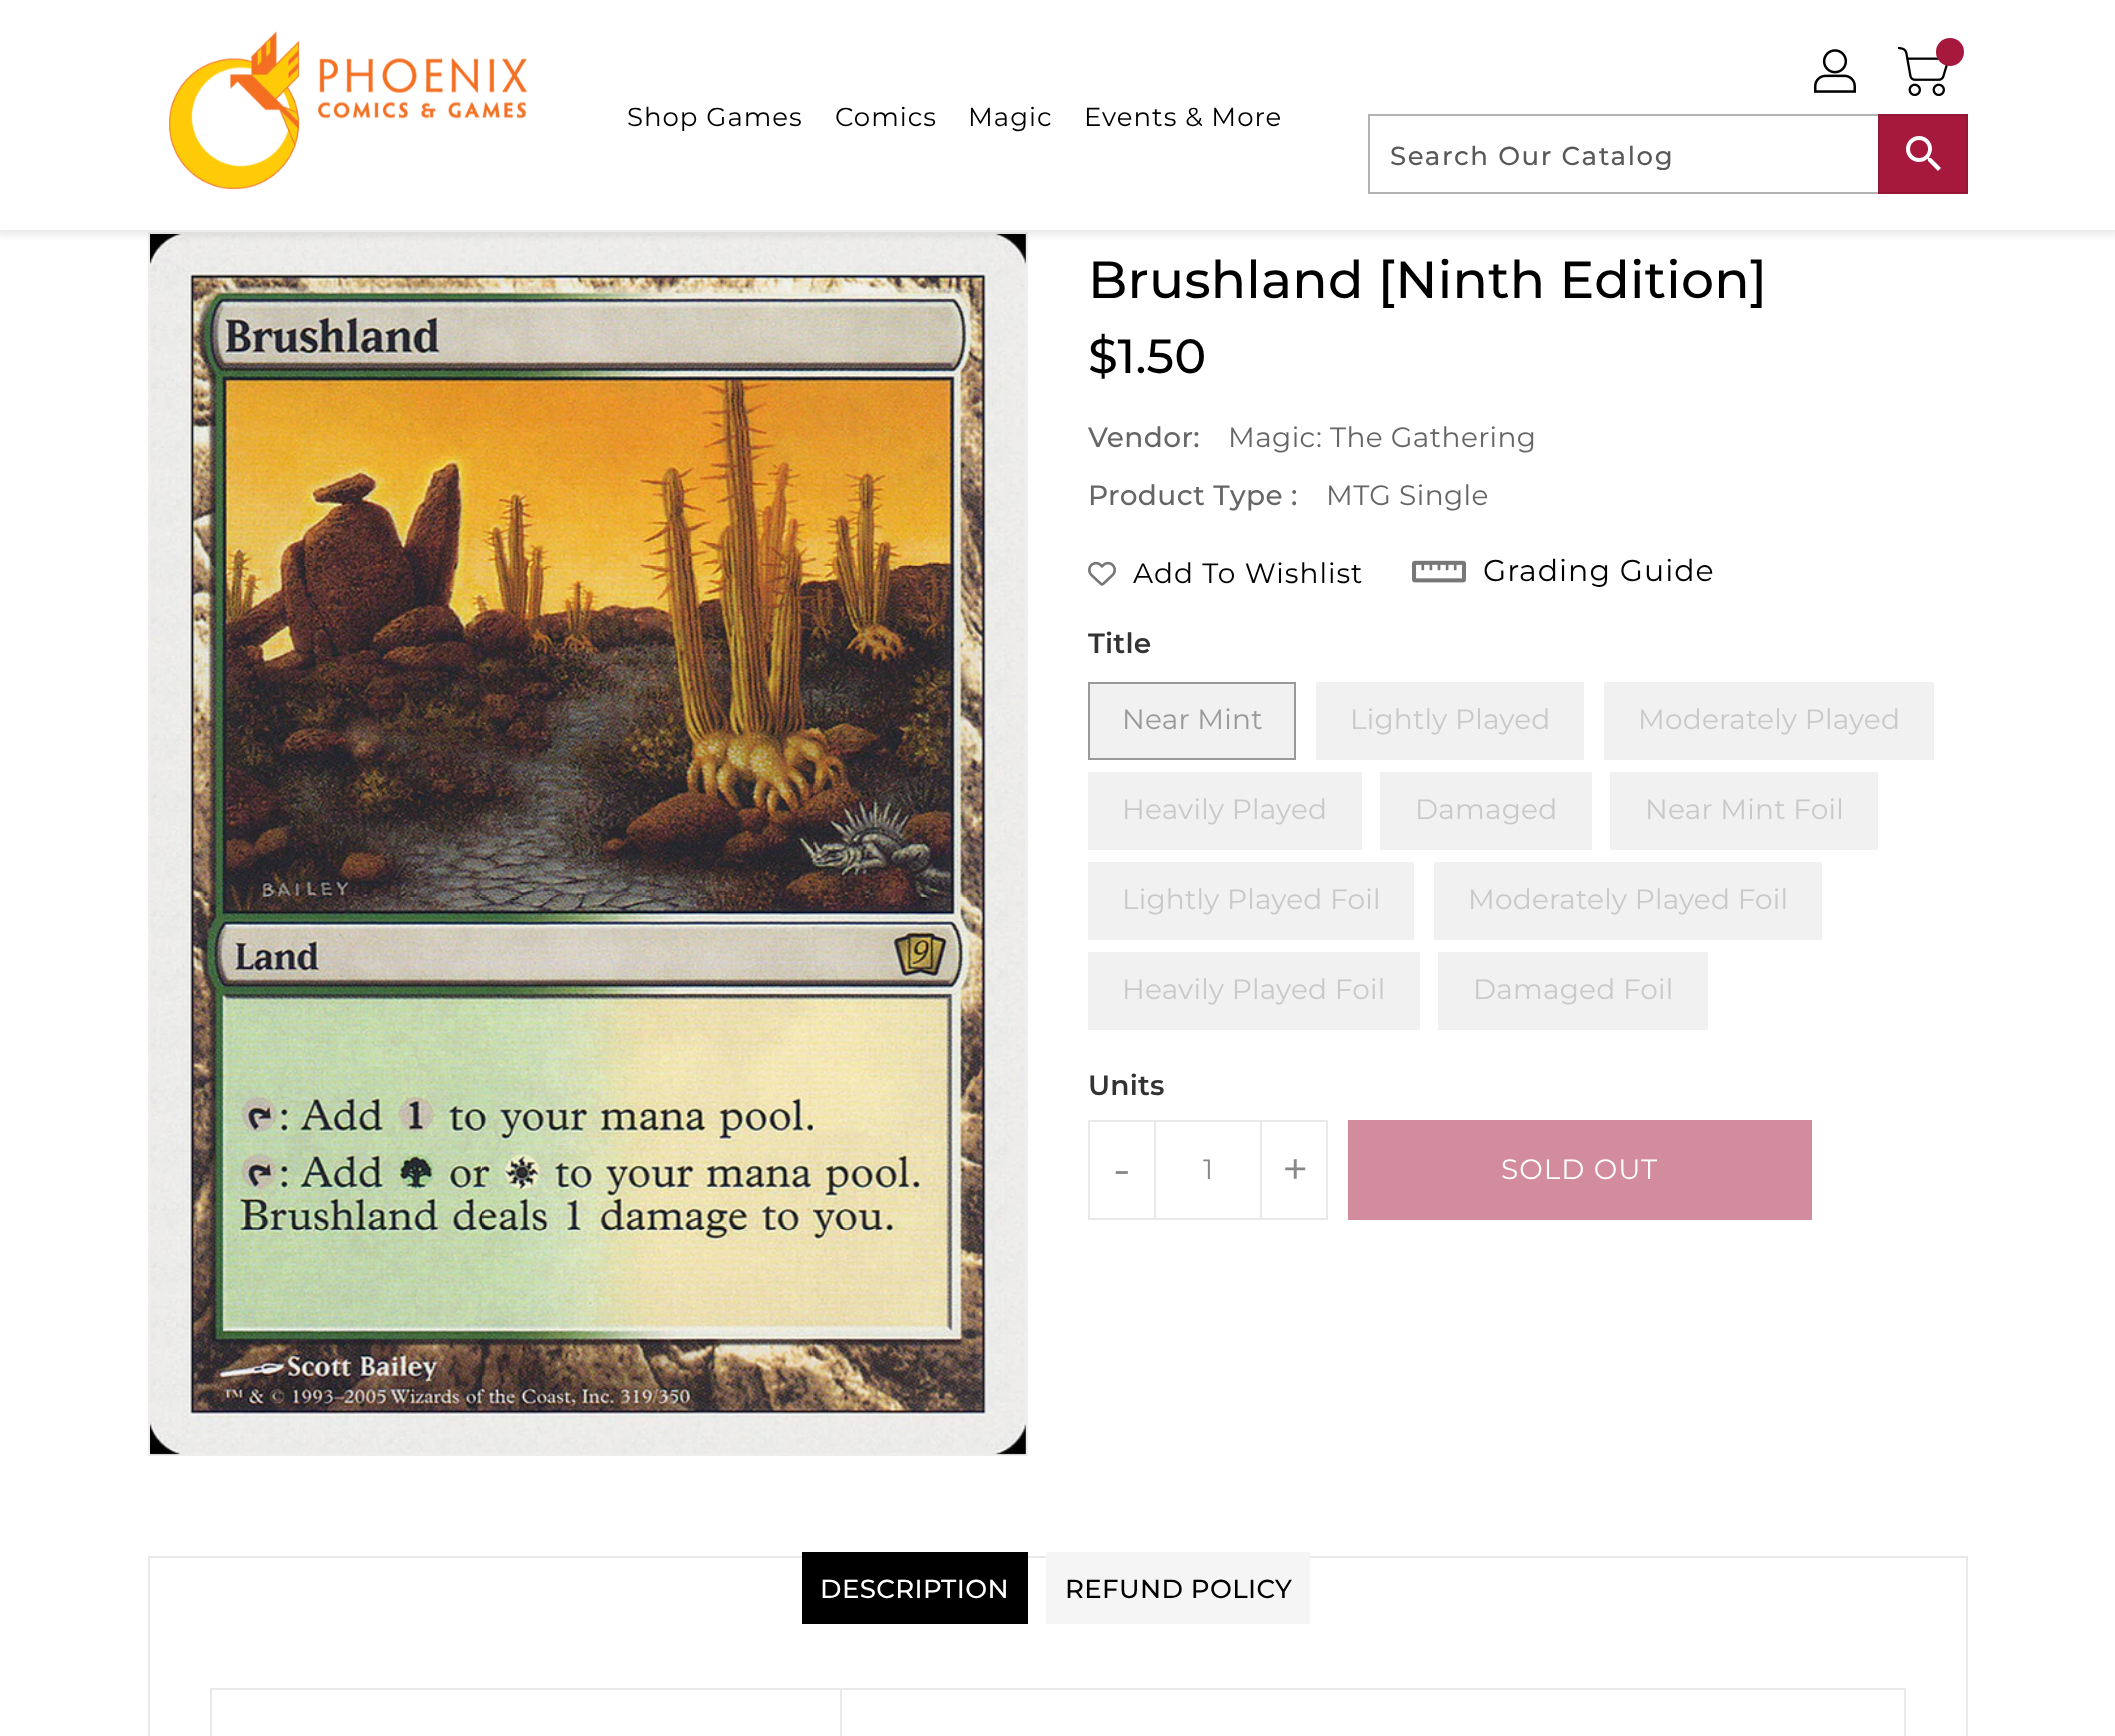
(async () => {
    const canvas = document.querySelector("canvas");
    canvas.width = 2115;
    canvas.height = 1736;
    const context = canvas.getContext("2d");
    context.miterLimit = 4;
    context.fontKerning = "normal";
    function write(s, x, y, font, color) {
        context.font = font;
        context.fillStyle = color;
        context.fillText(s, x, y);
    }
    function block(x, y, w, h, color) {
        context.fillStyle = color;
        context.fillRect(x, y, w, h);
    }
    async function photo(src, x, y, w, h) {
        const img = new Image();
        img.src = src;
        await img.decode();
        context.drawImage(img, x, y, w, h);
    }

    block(0, 0, 2115, 1736, "rgb(255, 255, 255)");
    context.strokeStyle = "rgb(238, 238, 238)";
    context.lineWidth = 2;
    context.strokeRect(149, 233, 878, 1222);
    await photo("media/5.png", 150, 234, 876, 1221);
    context.fillStyle = "rgba(0, 0, 0, 0.1)";
    context.filter = "blur(5px)";
    context.beginPath();
    context.rect(-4, -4, 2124, 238);
    context.fill();
    context.filter = "none";
    block(0, 0, 2115, 230, "rgb(255, 255, 255)");
    await photo("media/1.png", 168, 31, 360, 159);
    context.letterSpacing = "1px";
    write("Shop Games", 627, 126, "26px Montserrat", "rgb(0, 0, 0)");
    write("Comics", 835, 126, "26px Montserrat", "rgb(0, 0, 0)");
    write("Magic", 968, 126, "26px Montserrat", "rgb(0, 0, 0)");
    write("Events & More", 1084, 126, "26px Montserrat", "rgb(0, 0, 0)");
    await photo("media/2.png", 1814, 49, 42, 44);
    await photo("media/3.png", 1898, 47, 50, 50);
    context.fillStyle = "rgb(166, 25, 60)";
    context.beginPath();
    context.arc(1950, 52, 14, 0, Math.PI * 2);
    context.fill();
    context.strokeStyle = "rgb(179, 179, 179)";
    context.strokeRect(1369, 115, 598, 78);
    context.save();
    context.beginPath();
    context.rect(1390, 138, 468, 32);
    context.clip();
    context.letterSpacing = "1.6px";
    write("Search Our Catalog", 1390, 165, "500 26px Montserrat", "rgb(89, 89, 89)");
    context.restore();
    context.beginPath();
    context.rect(1879, 115, 88, 78);
    context.fill();
    context.strokeStyle = "rgb(149, 23, 54)";
    context.stroke();
    await photo("media/4.png", 1906, 136, 35, 35);
    context.letterSpacing = "0.2px";
    write("Brushland [Ninth Edition]", 1088, 298, "500 52px Montserrat", "rgb(0, 0, 0)");
    write("$1.50", 1088, 373, "500 48px Montserrat", "rgb(0, 0, 0)");
    context.letterSpacing = "0.4px";
    write("Vendor:", 1088, 447, "500 28px Montserrat", "rgb(102, 102, 102)");
    write("Magic: The Gathering", 1228, 447, "28px Montserrat", "rgb(102, 102, 102)");
    write("Product Type :", 1088, 505, "500 28px Montserrat", "rgb(102, 102, 102)");
    write("MTG Single", 1326, 505, "28px Montserrat", "rgb(102, 102, 102)");
    await photo("media/6.png", 1088, 561, 28, 25);
    context.letterSpacing = "1px";
    write("Add To Wishlist", 1133, 583, "28px Montserrat", "rgb(0, 0, 0)");
    await photo("media/7.png", 1412, 560, 54, 23);
    write("Grading Guide", 1483, 581, "30px Montserrat", "rgb(0, 0, 0)");
    context.letterSpacing = "0.2px";
    write("Title", 1088, 653, "600 28px Montserrat", "rgb(51, 51, 51)");
    context.fillStyle = "rgb(241, 241, 241)";
    context.beginPath();
    context.rect(1089, 683, 206, 76);
    context.fill();
    context.strokeStyle = "rgb(153, 153, 153)";
    context.stroke();
    write("Near Mint", 1122, 729, "28px Montserrat", "rgb(153, 153, 153)");
    block(1316, 682, 268, 78, "rgb(241, 241, 241)");
    write("Lightly Played", 1350, 729, "28px Montserrat", "rgb(201, 201, 201)");
    block(1604, 682, 330, 78, "rgb(241, 241, 241)");
    write("Moderately Played", 1638, 729, "28px Montserrat", "rgb(201, 201, 201)");
    block(1088, 772, 274, 78, "rgb(241, 241, 241)");
    write("Heavily Played", 1122, 819, "28px Montserrat", "rgb(201, 201, 201)");
    block(1380, 772, 212, 78, "rgb(241, 241, 241)");
    write("Damaged", 1415, 819, "28px Montserrat", "rgb(201, 201, 201)");
    block(1610, 772, 268, 78, "rgb(241, 241, 241)");
    write("Near Mint Foil", 1645, 819, "28px Montserrat", "rgb(201, 201, 201)");
    block(1088, 862, 326, 78, "rgb(241, 241, 241)");
    write("Lightly Played Foil", 1122, 909, "28px Montserrat", "rgb(201, 201, 201)");
    block(1434, 862, 388, 78, "rgb(241, 241, 241)");
    write("Moderately Played Foil", 1468, 909, "28px Montserrat", "rgb(201, 201, 201)");
    block(1088, 952, 332, 78, "rgb(241, 241, 241)");
    write("Heavily Played Foil", 1122, 999, "28px Montserrat", "rgb(201, 201, 201)");
    block(1438, 952, 270, 78, "rgb(241, 241, 241)");
    write("Damaged Foil", 1473, 999, "28px Montserrat", "rgb(201, 201, 201)");
    write("Units", 1088, 1095, "600 28px Montserrat", "rgb(51, 51, 51)");
    context.strokeStyle = "rgb(233, 233, 233)";
    context.strokeRect(1089, 1121, 66, 98);
    context.letterSpacing = "1px";
    write("-", 1113, 1185, "46px Montserrat", "rgb(136, 136, 136)");
    block(1156, 1120, 104, 2, "rgb(233, 233, 233)");
    block(1156, 1218, 104, 2, "rgb(233, 233, 233)");
    context.letterSpacing = "0.2px";
    write("1", 1203, 1179, "28px Montserrat", "rgb(136, 136, 136)");
    context.strokeRect(1261, 1121, 66, 98);
    context.letterSpacing = "1px";
    write("+", 1282, 1185, "46px Montserrat", "rgb(136, 136, 136)");
    block(1348, 1120, 464, 100, "rgb(211, 140, 158)");
    write("SOLD OUT", 1501, 1179, "28px Montserrat", "rgb(255, 255, 255)");
    context.strokeRect(149, 1557, 1818, 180);
    block(802, 1552, 226, 72, "rgb(0, 0, 0)");
    context.letterSpacing = "0.4px";
    write("DESCRIPTION", 820, 1598, "500 26px Montserrat", "rgb(255, 255, 255)");
    block(1046, 1552, 264, 72, "rgb(245, 245, 245)");
    write("REFUND POLICY", 1065, 1598, "500 26px Montserrat", "rgb(0, 0, 0)");
    block(840, 1688, 1066, 2, "rgb(232, 233, 235)");
    block(840, 1688, 2, 48, "rgb(232, 233, 235)");
    block(210, 1688, 632, 2, "rgb(232, 233, 235)");
    block(210, 1688, 2, 48, "rgb(232, 233, 235)");
    block(1904, 1688, 2, 48, "rgb(232, 233, 235)");
})();
